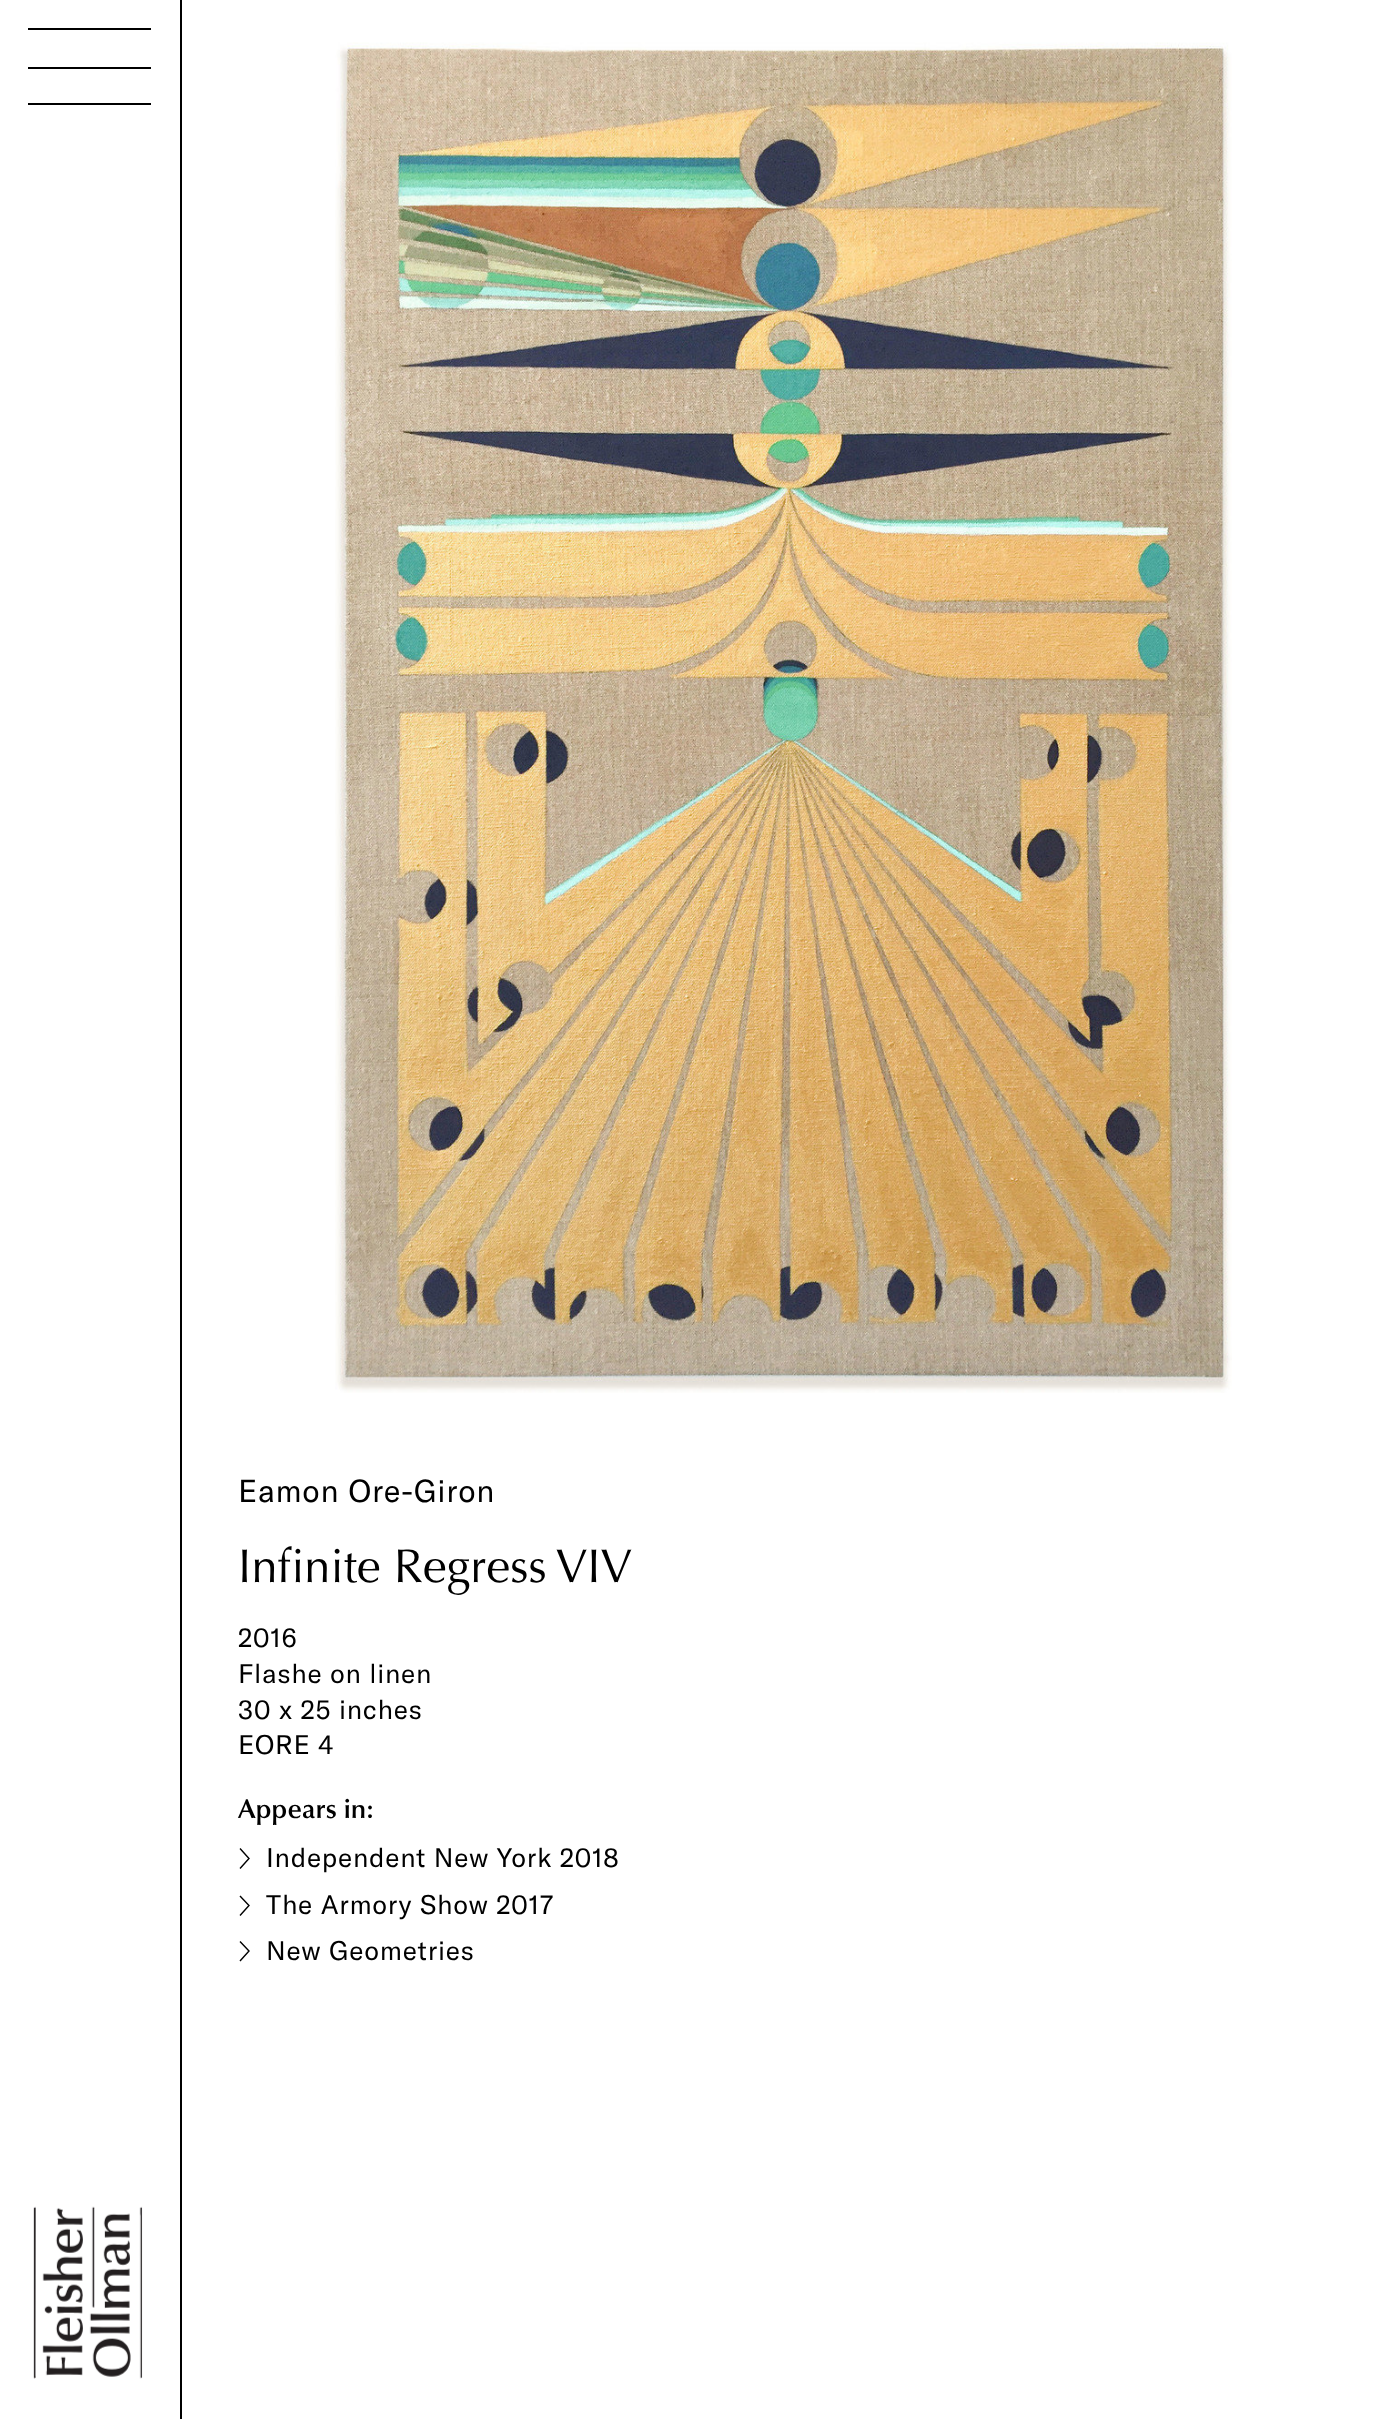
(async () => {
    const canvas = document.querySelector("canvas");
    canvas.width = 1386;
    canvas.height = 2419;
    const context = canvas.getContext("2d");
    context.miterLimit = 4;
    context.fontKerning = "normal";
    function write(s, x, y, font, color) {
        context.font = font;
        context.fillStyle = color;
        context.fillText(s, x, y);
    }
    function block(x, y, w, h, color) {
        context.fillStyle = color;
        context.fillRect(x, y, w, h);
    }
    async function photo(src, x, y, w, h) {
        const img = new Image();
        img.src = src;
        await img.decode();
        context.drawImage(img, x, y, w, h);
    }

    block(0, 0, 1386, 2419, "rgb(255, 255, 255)");
    block(28, 103, 123, 2, "rgb(0, 0, 0)");
    block(28, 28, 123, 2, "rgb(0, 0, 0)");
    block(28, 67, 123, 2, "rgb(0, 0, 0)");
    block(180, 0, 2, 2419, "rgb(0, 0, 0)");
    await photo("media/1.png", 335, 42, 897, 1351);
    context.letterSpacing = "0.75px";
    write("Eamon Ore-Giron", 238, 1502, "31.25px GT America", "rgb(0, 0, 0)");
    context.letterSpacing = "0px";
    write("Infinite Regress VIV", 238, 1582, "47.5px Optima", "rgb(0, 0, 0)");
    context.letterSpacing = "0.7px";
    write("2016", 238, 1647, "26.6px GT America", "rgb(0, 0, 0)");
    write("Flashe on linen", 238, 1683, "26.6px GT America", "rgb(0, 0, 0)");
    write("30 x 25 inches", 238, 1719, "26.6px GT America", "rgb(0, 0, 0)");
    write("EORE 4", 238, 1754, "26.6px GT America", "rgb(0, 0, 0)");
    context.letterSpacing = "0px";
    write("Appears in:", 238, 1818, "600 27px Optima", "rgb(0, 0, 0)");
    context.beginPath();
    context.moveTo(240, 1848.5);
    context.lineTo(249, 1858.5);
    context.lineTo(240, 1868.5);
    context.strokeStyle = "rgb(0, 0, 0)";
    context.lineWidth = 1.4;
    context.stroke();
    context.letterSpacing = "0.7px";
    write("Independent New York 2018", 266, 1867, "26.6px GT America", "rgb(0, 0, 0)");
    context.beginPath();
    context.moveTo(240, 1896);
    context.lineTo(249, 1905.5);
    context.lineTo(240, 1915.5);
    context.stroke();
    write("The Armory Show 2017", 266, 1914, "26.6px GT America", "rgb(0, 0, 0)");
    context.beginPath();
    context.moveTo(240, 1941.5);
    context.lineTo(249, 1951);
    context.lineTo(240, 1961);
    context.stroke();
    write("New Geometries", 266, 1960, "26.6px GT America", "rgb(0, 0, 0)");
    await photo("media/2.png", 33, 2206, 110, 173);
})();
